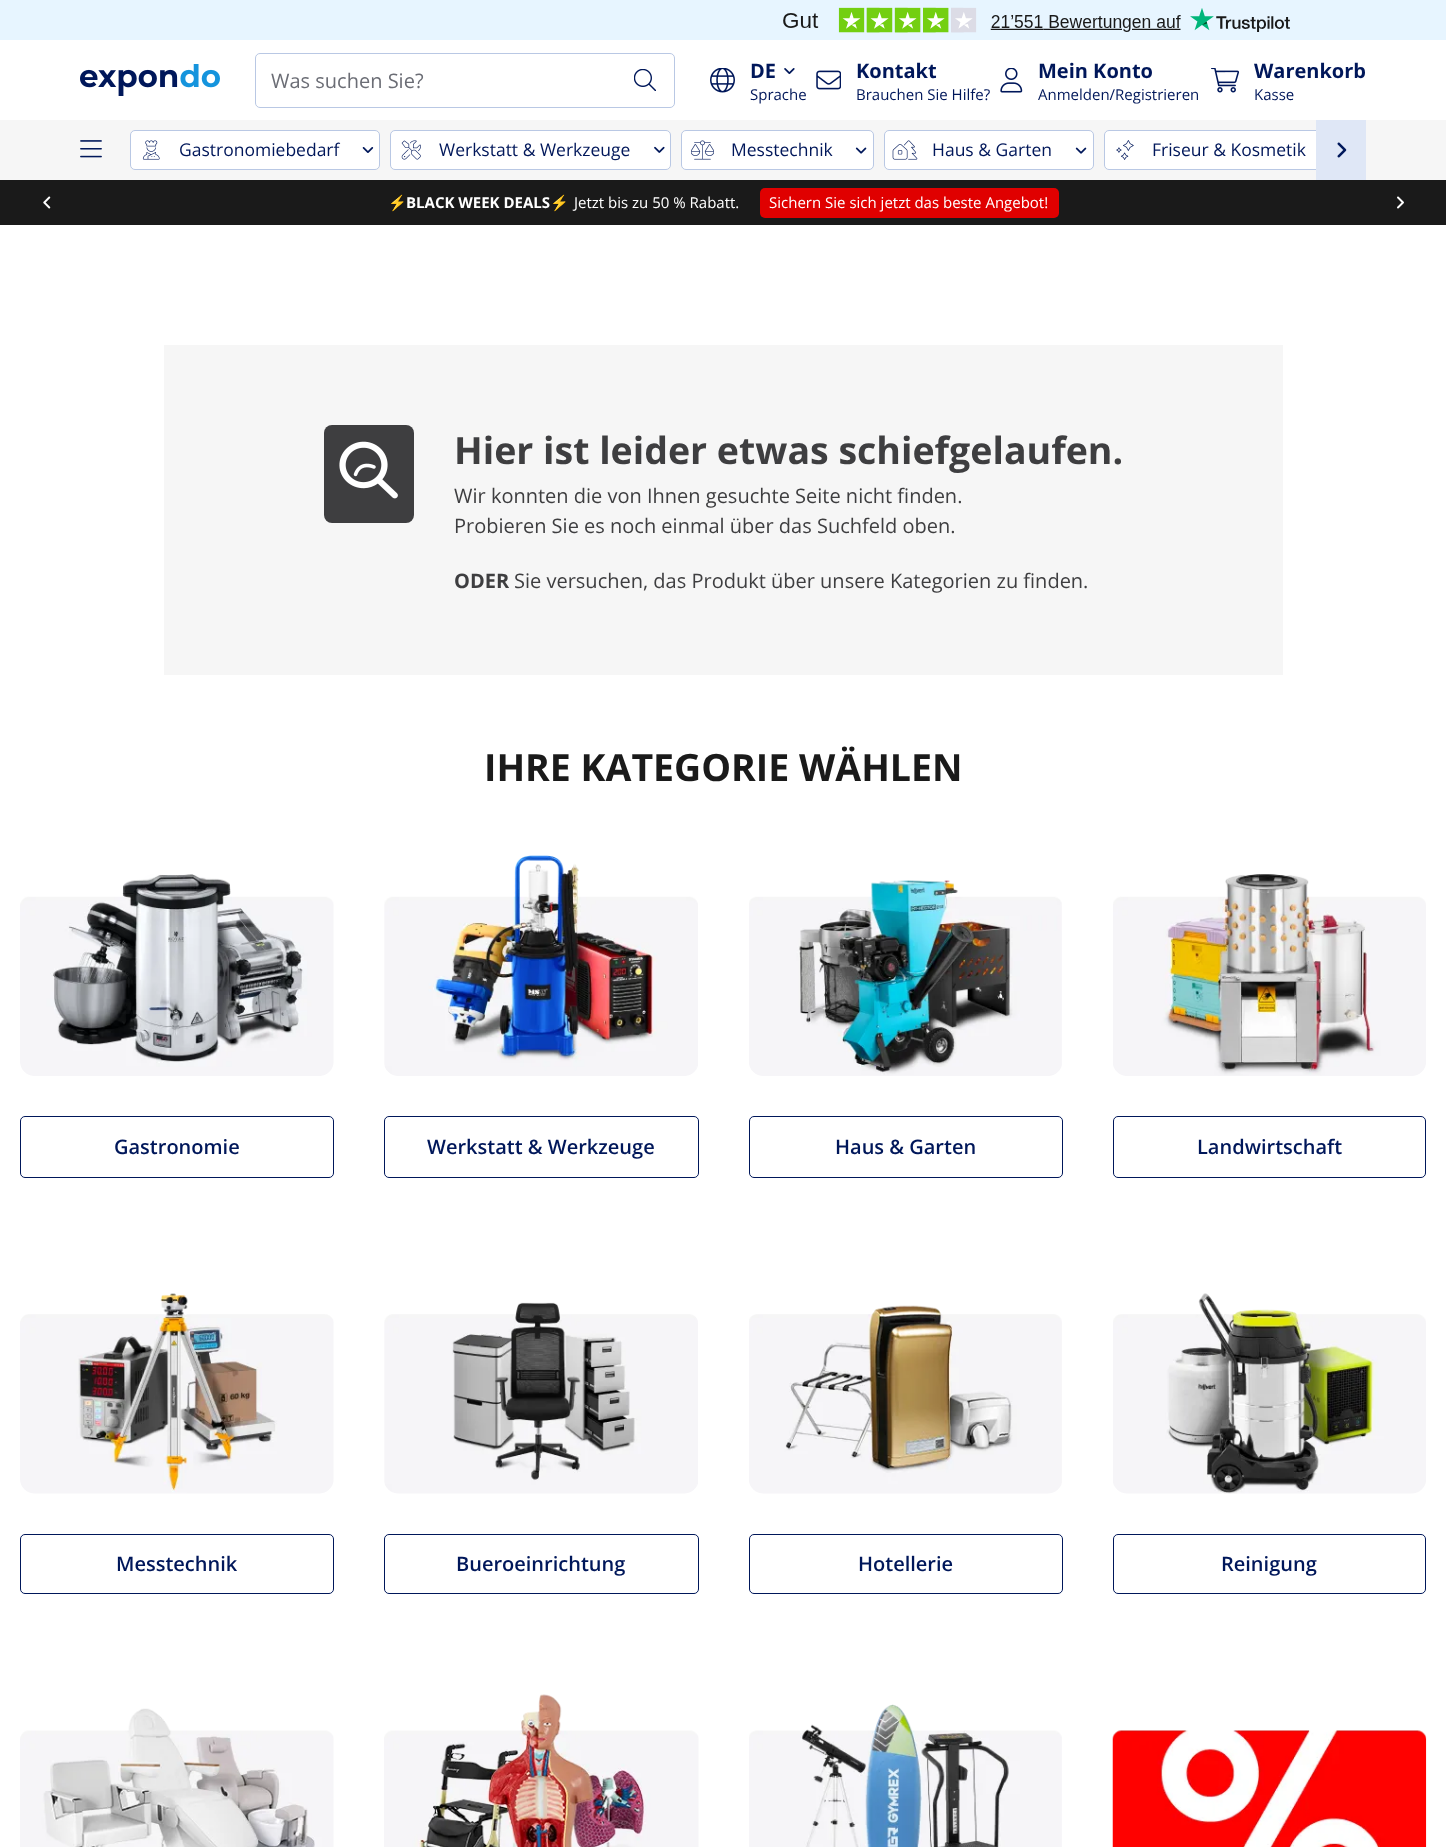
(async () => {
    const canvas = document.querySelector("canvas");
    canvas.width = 1446;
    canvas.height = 1847;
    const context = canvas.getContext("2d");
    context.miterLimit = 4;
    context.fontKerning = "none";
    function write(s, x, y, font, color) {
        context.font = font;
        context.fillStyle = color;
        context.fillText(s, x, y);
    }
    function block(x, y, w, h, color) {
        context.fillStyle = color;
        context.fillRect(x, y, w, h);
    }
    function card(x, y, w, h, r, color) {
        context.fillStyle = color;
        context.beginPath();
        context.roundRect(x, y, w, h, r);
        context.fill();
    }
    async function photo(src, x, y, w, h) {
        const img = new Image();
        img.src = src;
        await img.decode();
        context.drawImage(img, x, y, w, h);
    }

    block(0, 0, 1446, 1847, "rgb(255, 255, 255)");
    block(0, 0, 1446, 40, "rgb(231, 245, 255)");
    await photo("media/1.png", 783, 7, 507, 26);
    await photo("media/2.png", 80, 64, 140, 32);
    context.beginPath();
    context.roundRect(255.5, 53.5, 419, 54, 4.5);
    context.strokeStyle = "rgb(185, 200, 228)";
    context.stroke();
    write("Was suchen Sie?", 271, 88, "20px Open Sans", "rgb(107, 109, 117)");
    await photo("media/3.png", 634, 69, 22, 22);
    await photo("media/4.png", 710, 68, 25, 25);
    write("DE", 750, 78, "bold 20px Open Sans", "rgb(0, 23, 90)");
    await photo("media/5.png", 784, 68, 11, 7);
    write("Sprache", 750, 100, "15px Open Sans", "rgb(0, 23, 90)");
    await photo("media/6.png", 816, 70, 25, 20);
    write("Kontakt", 856, 78, "bold 20px Open Sans", "rgb(0, 23, 90)");
    write("Brauchen Sie Hilfe?", 856, 100, "15px Open Sans", "rgb(0, 23, 90)");
    await photo("media/7.png", 1000, 68, 23, 25);
    write("Mein Konto", 1038, 78, "bold 20px Open Sans", "rgb(0, 23, 90)");
    write("Anmelden/Registrieren", 1038, 100, "15px Open Sans", "rgb(0, 23, 90)");
    await photo("media/8.png", 1211, 68, 28, 25);
    write("Warenkorb", 1254, 78, "bold 20px Open Sans", "rgb(0, 23, 90)");
    write("Kasse", 1254, 100, "15px Open Sans", "rgb(0, 23, 90)");
    block(0, 120, 1446, 60, "rgb(246, 246, 246)");
    await photo("media/9.png", 80, 140, 22, 18);
    context.fillStyle = "rgb(255, 255, 255)";
    context.beginPath();
    context.roundRect(130.5, 130.5, 249, 39, 4.5);
    context.fill();
    context.stroke();
    await photo("media/10.png", 142, 140, 18, 20);
    write("Gastronomiebedarf", 179, 156, "17.5px Open Sans", "rgb(0, 23, 90)");
    await photo("media/11.png", 362, 147, 12, 6);
    context.fillStyle = "rgb(255, 255, 255)";
    context.beginPath();
    context.roundRect(390.5, 130.5, 280, 39, 4.5);
    context.fill();
    context.stroke();
    await photo("media/12.png", 401, 140, 20, 20);
    write("Werkstatt & Werkzeuge", 439, 156, "17.5px Open Sans", "rgb(0, 23, 90)");
    await photo("media/13.png", 654, 146, 11, 7);
    context.fillStyle = "rgb(255, 255, 255)";
    context.beginPath();
    context.roundRect(681.5, 130.5, 192, 39, 4.5);
    context.fill();
    context.stroke();
    await photo("media/14.png", 691, 140, 23, 20);
    write("Messtechnik", 731, 156, "17.5px Open Sans", "rgb(0, 23, 90)");
    await photo("media/15.png", 855, 147, 12, 7);
    context.fillStyle = "rgb(255, 255, 255)";
    context.beginPath();
    context.roundRect(884.5, 130.5, 209, 39, 4.5);
    context.fill();
    context.stroke();
    await photo("media/16.png", 892, 140, 26, 20);
    write("Haus & Garten", 932, 156, "17.5px Open Sans", "rgb(0, 23, 90)");
    await photo("media/17.png", 1075, 147, 12, 7);
    context.fillStyle = "rgb(255, 255, 255)";
    context.beginPath();
    context.roundRect(1104.5, 130.5, 243, 39, 4.5);
    context.fill();
    context.stroke();
    await photo("media/18.png", 1116, 140, 18, 20);
    write("Friseur & Kosmetik", 1152, 156, "17.5px Open Sans", "rgb(0, 23, 90)");
    block(1316, 120, 50, 60, "rgb(223, 231, 246)");
    await photo("media/19.png", 1337, 142, 10, 16);
    block(0, 180, 1446, 45, "rgb(26, 26, 26)");
    await photo("media/20.png", 43, 196, 8, 13);
    write("⚡", 388, 208, "bold 15px Noto Color Emoji", "rgb(255, 255, 255)");
    write("BLACK WEEK DEALS", 406, 208, "bold 15px Open Sans", "rgb(255, 255, 255)");
    write("⚡", 550, 208, "bold 15px Noto Color Emoji", "rgb(255, 255, 255)");
    write("Jetzt bis zu 50 % Rabatt.", 574, 208, "15px Open Sans", "rgb(255, 255, 255)");
    card(760, 188, 299, 30, 5, "rgb(224, 0, 0)");
    write("Sichern Sie sich jetzt das beste Angebot!", 769, 208, "15px Open Sans", "rgb(255, 255, 255)");
    await photo("media/21.png", 1397, 196, 7, 13);
    block(164, 345, 1119, 330, "rgb(246, 246, 246)");
    card(324, 425, 90, 98, 8, "rgb(62, 62, 64)");
    await photo("media/22.png", 339, 441, 59, 58);
    write("Hier ist leider etwas schiefgelaufen.", 454, 464, "bold 37.5px Open Sans", "rgb(62, 62, 64)");
    write("Wir konnten die von Ihnen gesuchte Seite nicht finden.", 454, 503, "20px Open Sans", "rgb(62, 62, 64)");
    write("Probieren Sie es noch einmal über das Suchfeld oben.", 454, 533, "20px Open Sans", "rgb(62, 62, 64)");
    write("ODER", 454, 588, "bold 20px Open Sans", "rgb(62, 62, 64)");
    write("Sie versuchen, das Produkt über unsere Kategorien zu finden.", 514, 588, "20px Open Sans", "rgb(62, 62, 64)");
    write("IHRE KATEGORIE WÄHLEN", 484, 781, "bold 37.5px Open Sans", "rgb(26, 26, 26)");
    await photo("media/23.png", 20, 874, 314, 202);
    context.beginPath();
    context.roundRect(20.5, 1116.5, 313, 61, 4.5);
    context.strokeStyle = "rgb(0, 23, 90)";
    context.stroke();
    write("Gastronomie", 114, 1154, "600 20px Open Sans", "rgb(0, 23, 90)");
    await photo("media/24.png", 384, 855, 314, 221);
    context.beginPath();
    context.roundRect(384.5, 1116.5, 314, 61, 4.5);
    context.stroke();
    write("Werkstatt & Werkzeuge", 427, 1154, "600 20px Open Sans", "rgb(0, 23, 90)");
    await photo("media/25.png", 749, 880, 313, 196);
    context.beginPath();
    context.roundRect(749.5, 1116.5, 313, 61, 4.5);
    context.stroke();
    write("Haus & Garten", 835, 1154, "600 20px Open Sans", "rgb(0, 23, 90)");
    await photo("media/26.png", 1113, 874, 313, 202);
    context.beginPath();
    context.roundRect(1113.5, 1116.5, 312, 61, 4.5);
    context.stroke();
    write("Landwirtschaft", 1197, 1154, "600 20px Open Sans", "rgb(0, 23, 90)");
    await photo("media/27.png", 20, 1293, 314, 201);
    context.beginPath();
    context.roundRect(20.5, 1534.5, 313, 59, 4.5);
    context.stroke();
    write("Messtechnik", 116, 1571, "600 20px Open Sans", "rgb(0, 23, 90)");
    await photo("media/28.png", 384, 1302, 314, 192);
    context.beginPath();
    context.roundRect(384.5, 1534.5, 314, 59, 4.5);
    context.stroke();
    write("Bueroeinrichtung", 456, 1571, "600 20px Open Sans", "rgb(0, 23, 90)");
    await photo("media/29.png", 749, 1305, 313, 189);
    context.beginPath();
    context.roundRect(749.5, 1534.5, 313, 59, 4.5);
    context.stroke();
    write("Hotellerie", 858, 1571, "600 20px Open Sans", "rgb(0, 23, 90)");
    await photo("media/30.png", 1113, 1293, 313, 201);
    context.beginPath();
    context.roundRect(1113.5, 1534.5, 312, 59, 4.5);
    context.stroke();
    write("Reinigung", 1221, 1571, "600 20px Open Sans", "rgb(0, 23, 90)");
    await photo("media/31.png", 20, 1708, 314, 139);
    await photo("media/32.png", 384, 1694, 315, 153);
    await photo("media/33.png", 749, 1704, 313, 143);
    await photo("media/34.png", 1112, 1730, 315, 117);
})();
